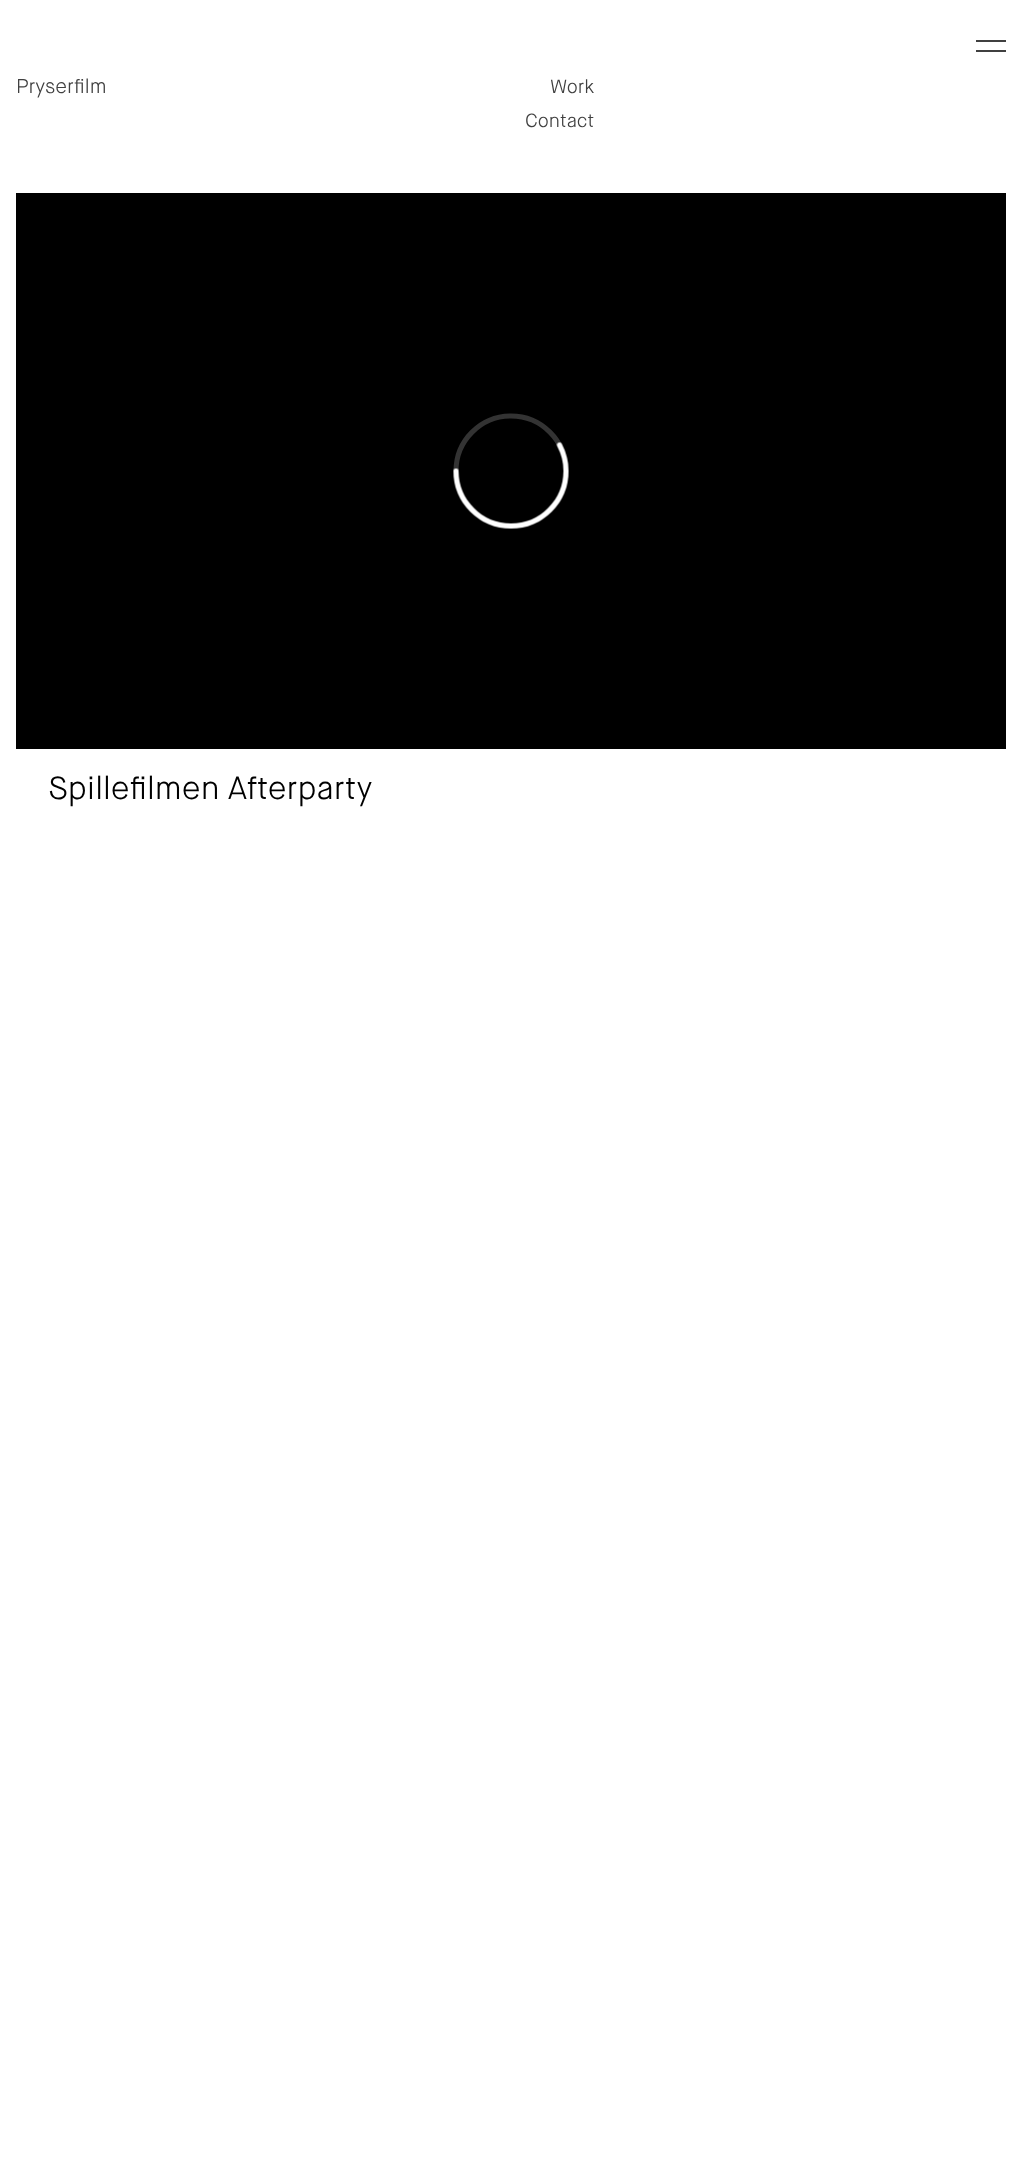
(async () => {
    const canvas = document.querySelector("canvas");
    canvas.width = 1022;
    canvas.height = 2162;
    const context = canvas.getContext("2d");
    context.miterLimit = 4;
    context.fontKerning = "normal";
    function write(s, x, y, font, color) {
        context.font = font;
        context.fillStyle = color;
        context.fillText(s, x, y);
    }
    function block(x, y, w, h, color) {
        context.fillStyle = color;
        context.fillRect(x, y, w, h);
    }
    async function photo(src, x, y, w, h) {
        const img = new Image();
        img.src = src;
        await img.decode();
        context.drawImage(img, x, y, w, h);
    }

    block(0, 0, 1022, 2162, "rgb(255, 255, 255)");
    write("Pryserfilm", 16, 93, "300 20px Maison Neue", "rgb(64, 64, 64)");
    block(976, 40, 30, 2, "rgb(64, 64, 64)");
    block(976, 50, 30, 2, "rgb(64, 64, 64)");
    write("Work", 550, 93, "300 19px Maison Neue", "rgb(64, 64, 64)");
    write("Contact", 525, 127, "300 19px Maison Neue", "rgb(64, 64, 64)");
    await photo("media/1.png", 16, 193, 990, 556);
    write("Spillefilmen Afterparty", 48, 799, "300 32px Maison Neue", "rgb(0, 0, 0)");
})();
